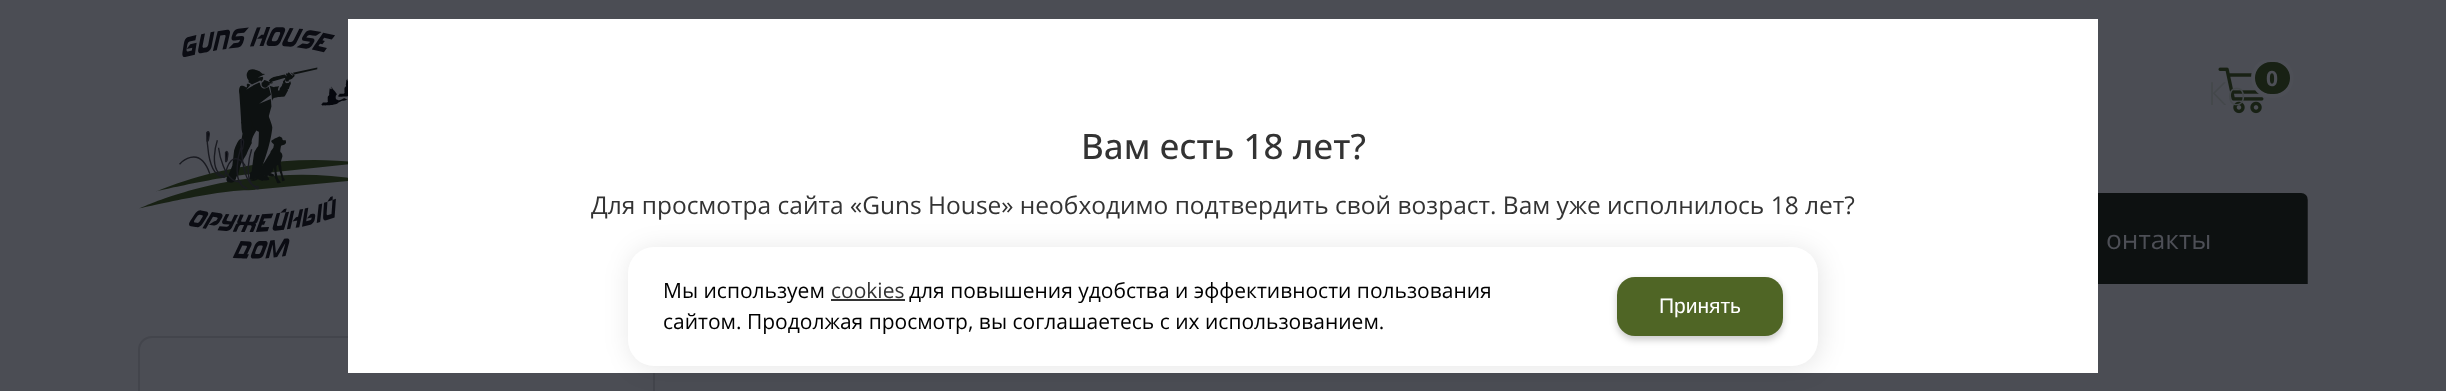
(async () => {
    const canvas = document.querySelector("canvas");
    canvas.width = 2446;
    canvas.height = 391;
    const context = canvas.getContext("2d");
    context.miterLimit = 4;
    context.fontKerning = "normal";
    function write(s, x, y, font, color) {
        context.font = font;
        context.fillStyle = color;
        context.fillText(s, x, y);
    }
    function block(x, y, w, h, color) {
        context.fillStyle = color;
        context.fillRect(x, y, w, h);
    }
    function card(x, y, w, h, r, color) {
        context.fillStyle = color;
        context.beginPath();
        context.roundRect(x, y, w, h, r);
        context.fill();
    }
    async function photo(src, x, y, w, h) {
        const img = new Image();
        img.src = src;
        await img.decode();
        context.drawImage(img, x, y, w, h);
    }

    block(0, 0, 2446, 391, "rgb(75, 77, 84)");
    context.fillStyle = "rgb(13, 17, 17)";
    context.beginPath();
    context.roundRect(763, 193, 1545, 91, [0, 7, 0, 0]);
    context.fill();
    context.beginPath();
    context.roundRect(139, 337, 515, 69, 13);
    context.strokeStyle = "rgba(1, 3, 9, 0.1)";
    context.lineWidth = 2;
    context.stroke();
    block(348, 19, 1750, 354, "rgb(255, 255, 255)");
    write("Вам есть 18 лет?", 1081, 159, "500 35px Open Sans", "rgb(51, 51, 51)");
    write("Для просмотра сайта «Guns House» необходимо подтвердить свой возраст. Вам уже исполнилось 18 лет?", 591, 214, "24.5px Open Sans", "rgb(51, 51, 51)");
    await photo("media/1.png", 139, 27, 209, 232);
    await photo("media/2.png", 2218, 67, 46, 47);
    context.save();
    context.beginPath();
    context.rect(2209, 60, 96, 70);
    context.clip();
    context.fillStyle = "rgb(24, 33, 20)";
    context.beginPath();
    context.roundRect(2253, 60, 39, 36, 18);
    context.fill();
    context.strokeStyle = "rgb(77, 79, 86)";
    context.lineWidth = 4;
    context.stroke();
    context.restore();
    write("0", 2266, 86, "bold 21px Open Sans", "rgb(77, 79, 86)");
    context.letterSpacing = "1px";
    write("Ко", 2208, 105, "300 32px Open Sans", "rgb(68, 72, 75)");
    block(2307, 193, 1, 91, "rgba(77, 79, 86, 0.27)");
    context.letterSpacing = "0px";
    write("онтакты", 2106, 249, "26.25px Open Sans", "rgb(77, 79, 86)");
    context.fillStyle = "rgba(0, 0, 0, 0.1)";
    context.filter = "blur(13px)";
    context.beginPath();
    context.roundRect(630, 249, 1190, 119, 26);
    context.fill();
    context.filter = "none";
    card(628, 247, 1190, 119, 26, "rgb(255, 255, 255)");
    write("Мы используем", 663, 298, "21px Open Sans", "rgb(0, 0, 0)");
    write("cookies", 831, 298, "21px Open Sans", "rgb(51, 51, 51)");
    block(831, 299, 74, 2, "rgb(51, 51, 51)");
    write("для повышения удобства и эффективности пользования", 909, 298, "21px Open Sans", "rgb(0, 0, 0)");
    write("сайтом. Продолжая просмотр, вы соглашаетесь с их использованием.", 663, 329, "21px Open Sans", "rgb(0, 0, 0)");
    context.fillStyle = "rgba(0, 0, 0, 0.2)";
    context.filter = "blur(3.5px)";
    context.beginPath();
    context.roundRect(1617, 280, 166, 60, 18);
    context.fill();
    context.filter = "none";
    card(1617, 277, 166, 59, 18, "rgb(79, 101, 37)");
    write("Принять", 1659, 313, "21px Liberation Sans", "rgb(255, 255, 255)");
})();
